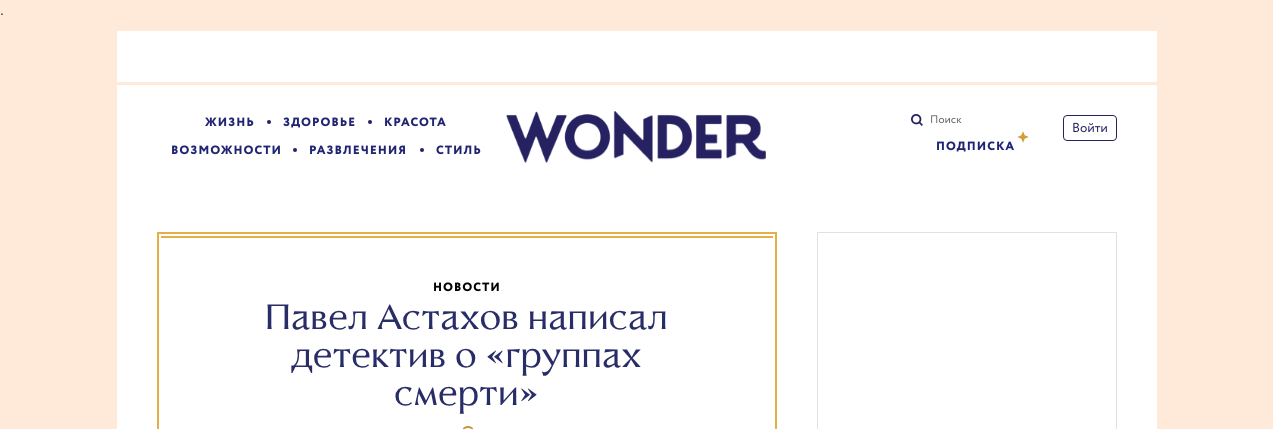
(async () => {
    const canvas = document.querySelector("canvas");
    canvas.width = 1273;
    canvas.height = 429;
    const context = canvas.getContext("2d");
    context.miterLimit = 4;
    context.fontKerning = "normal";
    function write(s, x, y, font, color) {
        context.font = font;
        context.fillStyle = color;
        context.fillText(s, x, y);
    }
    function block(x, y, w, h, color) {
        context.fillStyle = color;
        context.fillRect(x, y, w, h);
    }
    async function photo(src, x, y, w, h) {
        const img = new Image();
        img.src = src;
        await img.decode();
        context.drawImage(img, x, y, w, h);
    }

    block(0, 0, 1273, 429, "rgb(255, 234, 218)");
    write(".", 0, 15, "14px Liberation Sans", "rgb(38, 38, 38)");
    block(117, 31, 1040, 51, "rgb(255, 255, 255)");
    block(117, 85, 1040, 117, "rgb(255, 255, 255)");
    await photo("media/1.png", 205, 117, 49, 10);
    context.fillStyle = "rgb(38, 34, 97)";
    context.beginPath();
    context.arc(269, 122, 2, 0, Math.PI * 2);
    context.fill();
    await photo("media/2.png", 283, 117, 72, 11);
    context.beginPath();
    context.arc(370, 122, 2, 0, Math.PI * 2);
    context.fill();
    await photo("media/3.png", 385, 117, 61, 10);
    await photo("media/4.png", 172, 145, 108, 10);
    context.beginPath();
    context.arc(295, 150, 2, 0, Math.PI * 2);
    context.fill();
    await photo("media/5.png", 310, 145, 95, 10);
    context.beginPath();
    context.arc(422, 150, 2, 0, Math.PI * 2);
    context.fill();
    await photo("media/6.png", 436, 145, 45, 10);
    await photo("media/7.png", 506, 111, 260, 53);
    await photo("media/8.png", 911, 114, 12, 12);
    await photo("media/9.png", 931, 115, 31, 9);
    context.beginPath();
    context.roundRect(1063.5, 115.5, 53, 25, 3.5);
    context.strokeStyle = "rgb(38, 34, 97)";
    context.stroke();
    await photo("media/10.png", 1073, 122, 34, 11);
    await photo("media/11.png", 1017, 131, 12, 12);
    await photo("media/12.png", 937, 141, 77, 11);
    block(117, 202, 1040, 227, "rgb(255, 255, 255)");
    context.strokeStyle = "rgb(229, 175, 72)";
    context.lineWidth = 2;
    context.strokeRect(158, 233, 618, 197);
    block(161, 236, 612, 2, "rgb(229, 175, 72)");
    await photo("media/13.png", 434, 282, 65, 10);
    write("Павел Астахов написал", 265, 329, "35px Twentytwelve", "rgb(41, 45, 103)");
    write("детектив о «группах", 291, 367, "35px Twentytwelve", "rgb(41, 45, 103)");
    write("смерти»", 394, 405, "35px Twentytwelve", "rgb(41, 45, 103)");
    context.beginPath();
    context.roundRect(463, 427, 10, 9, 5);
    context.strokeStyle = "rgb(200, 149, 52)";
    context.stroke();
    context.strokeStyle = "rgb(225, 225, 225)";
    context.lineWidth = 1;
    context.strokeRect(817.5, 232.5, 299, 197);
})();
